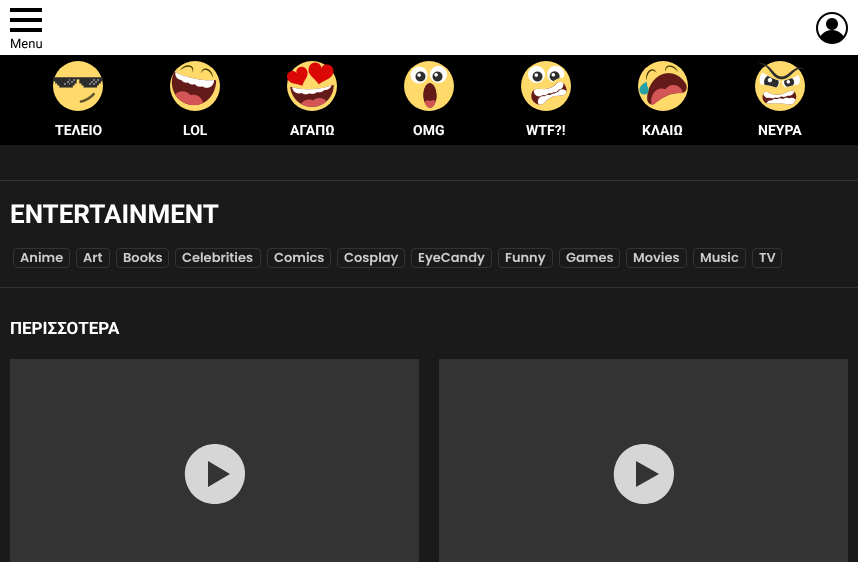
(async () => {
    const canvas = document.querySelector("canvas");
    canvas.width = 858;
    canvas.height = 562;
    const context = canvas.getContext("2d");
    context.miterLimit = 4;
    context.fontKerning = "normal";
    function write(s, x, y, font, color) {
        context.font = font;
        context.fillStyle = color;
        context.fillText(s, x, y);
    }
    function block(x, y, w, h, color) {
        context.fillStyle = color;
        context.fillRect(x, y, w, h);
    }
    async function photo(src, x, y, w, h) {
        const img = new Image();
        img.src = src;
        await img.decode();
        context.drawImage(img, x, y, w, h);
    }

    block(0, 0, 858, 562, "rgb(26, 26, 26)");
    block(0, 0, 858, 55, "rgb(255, 255, 255)");
    await photo("media/1.png", 10, 8, 32, 24);
    write("Menu", 10, 48, "13px Roboto", "rgb(0, 0, 0)");
    await photo("media/2.png", 816, 12, 32, 32);
    block(0, 55, 858, 90, "rgb(0, 0, 0)");
    context.fillStyle = "rgb(255, 218, 106)";
    context.beginPath();
    context.arc(78, 86, 25, 0, Math.PI * 2);
    context.fill();
    await photo("media/3.png", 53, 77, 50, 26);
    write("ΤΕΛΕΙΟ", 55, 135, "bold 14px Roboto", "rgb(255, 255, 255)");
    context.fillStyle = "rgb(255, 218, 106)";
    context.beginPath();
    context.arc(195, 86, 25, 0, Math.PI * 2);
    context.fill();
    await photo("media/4.png", 171, 65, 46, 41);
    write("LOL", 183, 135, "bold 14px Roboto", "rgb(255, 255, 255)");
    context.fillStyle = "rgb(255, 218, 106)";
    context.beginPath();
    context.arc(312, 86, 25, 0, Math.PI * 2);
    context.fill();
    await photo("media/5.png", 287, 62, 47, 45);
    write("ΑΓΑΠΩ", 290, 135, "bold 14px Roboto", "rgb(255, 255, 255)");
    context.fillStyle = "rgb(255, 218, 106)";
    context.beginPath();
    context.arc(429, 86, 25, 0, Math.PI * 2);
    context.fill();
    await photo("media/6.png", 410, 66, 37, 42);
    write("OMG", 413, 135, "bold 14px Roboto", "rgb(255, 255, 255)");
    context.fillStyle = "rgb(255, 218, 106)";
    context.beginPath();
    context.arc(546, 86, 25, 0, Math.PI * 2);
    context.fill();
    await photo("media/7.png", 528, 65, 39, 40);
    write("WTF?!", 526, 135, "bold 14px Roboto", "rgb(255, 255, 255)");
    context.fillStyle = "rgb(255, 218, 106)";
    context.beginPath();
    context.arc(663, 86, 25, 0, Math.PI * 2);
    context.fill();
    await photo("media/8.png", 639, 65, 48, 40);
    write("ΚΛΑΙΩ", 642, 135, "bold 14px Roboto", "rgb(255, 255, 255)");
    context.fillStyle = "rgb(255, 218, 106)";
    context.beginPath();
    context.arc(780, 86, 25, 0, Math.PI * 2);
    context.fill();
    await photo("media/9.png", 758, 62, 47, 43);
    write("ΝΕΥΡΑ", 758, 135, "bold 14px Roboto", "rgb(255, 255, 255)");
    block(0, 180, 858, 1, "rgb(51, 51, 51)");
    write("ENTERTAINMENT", 10, 223, "bold 26px Roboto", "rgb(255, 255, 255)");
    context.beginPath();
    context.roundRect(13.5, 248.5, 56, 19, 3.5);
    context.strokeStyle = "rgb(51, 51, 51)";
    context.stroke();
    write("Anime", 20, 262, "600 13px Poppins", "rgb(204, 204, 204)");
    context.beginPath();
    context.roundRect(76.5, 248.5, 33, 19, 3.5);
    context.stroke();
    write("Art", 83, 262, "600 13px Poppins", "rgb(204, 204, 204)");
    context.beginPath();
    context.roundRect(116.5, 248.5, 52, 19, 3.5);
    context.stroke();
    write("Books", 123, 262, "600 13px Poppins", "rgb(204, 204, 204)");
    context.beginPath();
    context.roundRect(175.5, 248.5, 85, 19, 3.5);
    context.stroke();
    write("Celebrities", 182, 262, "600 13px Poppins", "rgb(204, 204, 204)");
    context.beginPath();
    context.roundRect(267.5, 248.5, 63, 19, 3.5);
    context.stroke();
    write("Comics", 274, 262, "600 13px Poppins", "rgb(204, 204, 204)");
    context.beginPath();
    context.roundRect(337.5, 248.5, 67, 19, 3.5);
    context.stroke();
    write("Cosplay", 344, 262, "600 13px Poppins", "rgb(204, 204, 204)");
    context.beginPath();
    context.roundRect(411.5, 248.5, 80, 19, 3.5);
    context.stroke();
    write("EyeCandy", 418, 262, "600 13px Poppins", "rgb(204, 204, 204)");
    context.beginPath();
    context.roundRect(498.5, 248.5, 54, 19, 3.5);
    context.stroke();
    write("Funny", 505, 262, "600 13px Poppins", "rgb(204, 204, 204)");
    context.beginPath();
    context.roundRect(559.5, 248.5, 60, 19, 3.5);
    context.stroke();
    write("Games", 566, 262, "600 13px Poppins", "rgb(204, 204, 204)");
    context.beginPath();
    context.roundRect(626.5, 248.5, 60, 19, 3.5);
    context.stroke();
    write("Movies", 633, 262, "600 13px Poppins", "rgb(204, 204, 204)");
    context.beginPath();
    context.roundRect(693.5, 248.5, 52, 19, 3.5);
    context.stroke();
    write("Music", 700, 262, "600 13px Poppins", "rgb(204, 204, 204)");
    context.beginPath();
    context.roundRect(752.5, 248.5, 29, 19, 3.5);
    context.stroke();
    write("TV", 759, 262, "600 13px Poppins", "rgb(204, 204, 204)");
    block(0, 287, 858, 1, "rgb(51, 51, 51)");
    write("ΠΕΡΙΣΣΟΤΕΡΑ", 10, 334, "bold 17px Roboto", "rgb(255, 255, 255)");
    block(10, 359, 409, 203, "rgb(51, 51, 51)");
    context.fillStyle = "rgb(214, 214, 214)";
    context.beginPath();
    context.moveTo(215, 444);
    context.bezierCurveTo(209, 444, 202, 446, 197, 450);
    context.bezierCurveTo(174, 467, 186, 504, 215, 504);
    context.bezierCurveTo(244, 504, 256, 467, 233, 450);
    context.bezierCurveTo(228, 446, 221, 444, 215, 444);
    context.closePath();
    context.moveTo(208, 487);
    context.lineTo(208, 461);
    context.lineTo(230, 474);
    context.closePath();
    context.fill();
    block(439, 359, 409, 203, "rgb(51, 51, 51)");
    context.fillStyle = "rgb(214, 214, 214)";
    context.beginPath();
    context.moveTo(644, 444);
    context.bezierCurveTo(615, 444, 603, 481, 626, 498);
    context.bezierCurveTo(631, 502, 638, 504, 644, 504);
    context.bezierCurveTo(673, 504, 685, 467, 662, 450);
    context.bezierCurveTo(657, 446, 650, 444, 644, 444);
    context.closePath();
    context.moveTo(636, 487);
    context.lineTo(636, 461);
    context.lineTo(659, 474);
    context.closePath();
    context.fill();
})();
